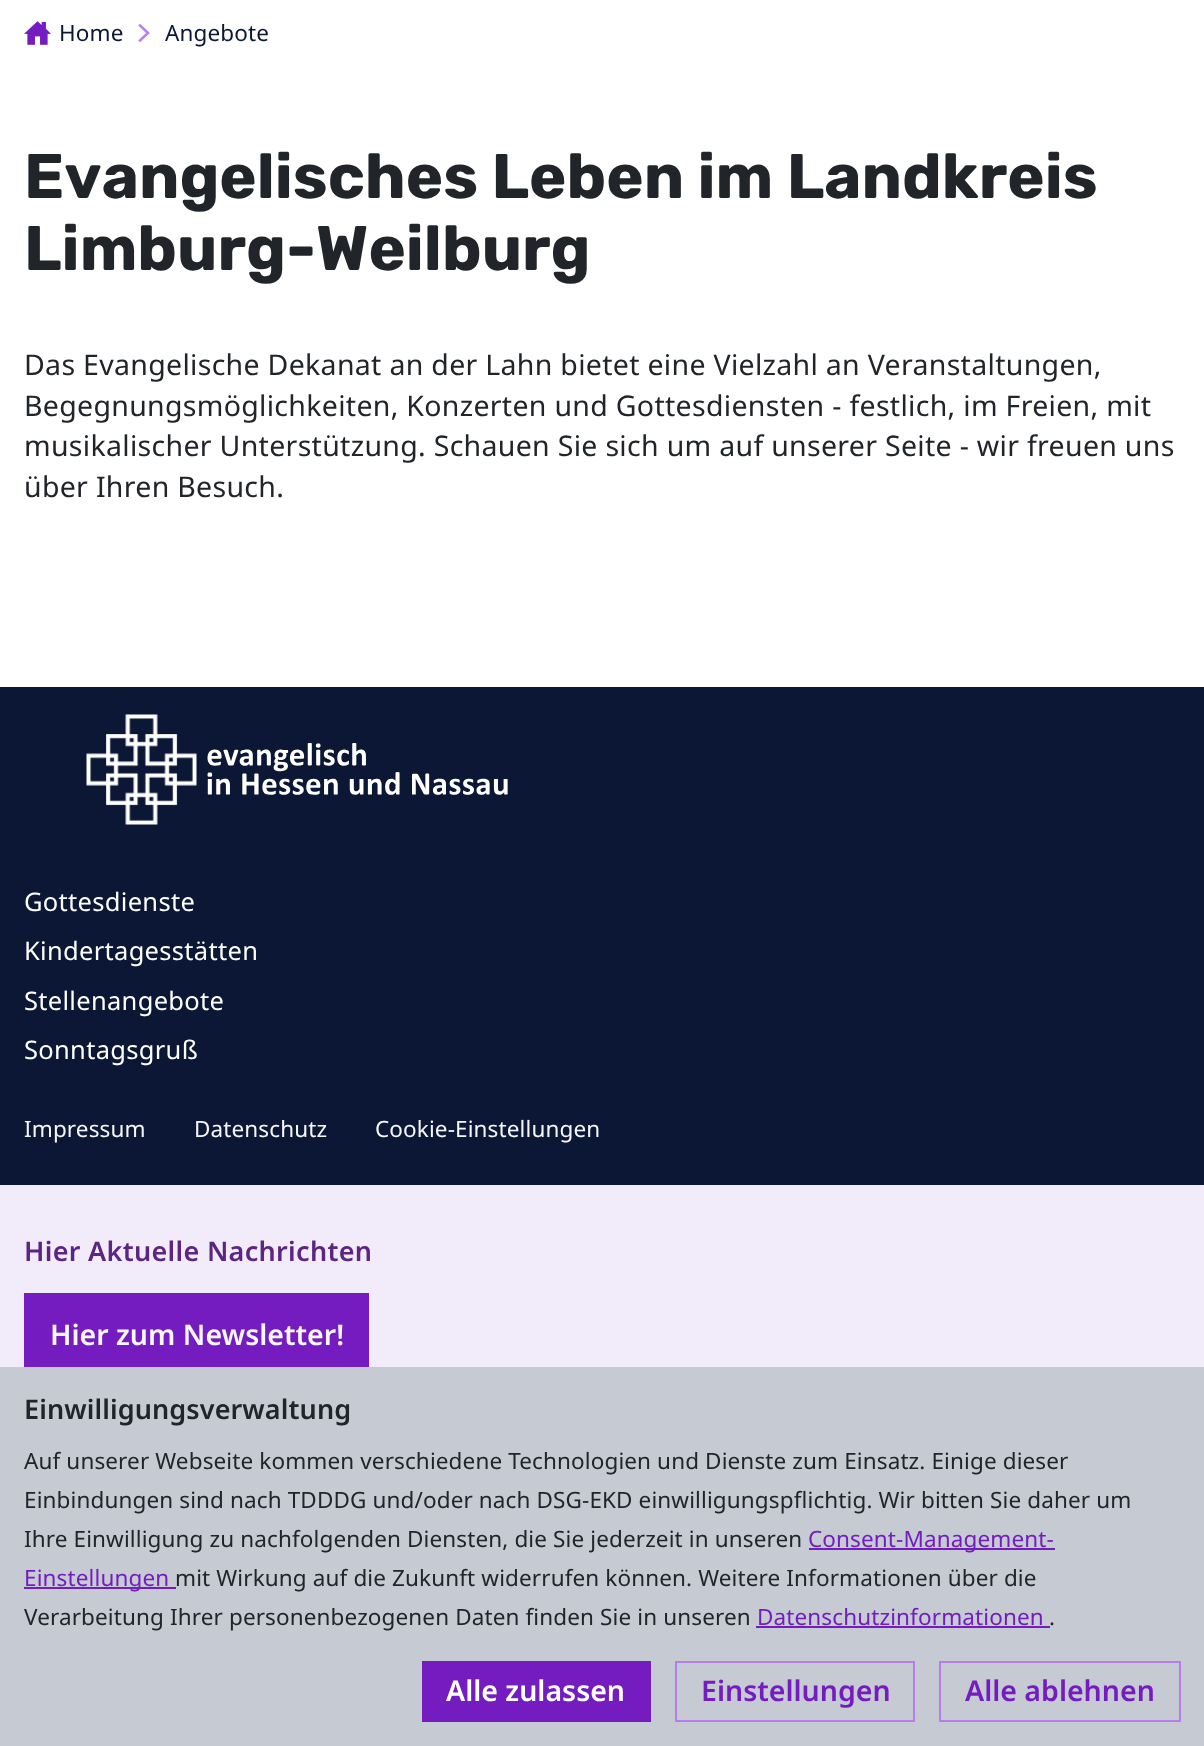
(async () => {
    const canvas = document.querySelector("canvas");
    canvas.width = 1204;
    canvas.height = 1746;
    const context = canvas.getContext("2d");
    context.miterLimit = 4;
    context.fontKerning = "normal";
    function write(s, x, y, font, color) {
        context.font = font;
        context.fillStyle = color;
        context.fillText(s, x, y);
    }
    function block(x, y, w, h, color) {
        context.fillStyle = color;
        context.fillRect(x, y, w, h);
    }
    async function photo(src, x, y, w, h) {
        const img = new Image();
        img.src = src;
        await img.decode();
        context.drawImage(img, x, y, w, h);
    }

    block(0, 0, 1204, 1746, "rgb(255, 255, 255)");
    await photo("media/1.png", 24, 21, 27, 24);
    context.letterSpacing = "0.12px";
    write("Home", 59, 41, "22.5px Noto Sans", "rgb(11, 23, 53)");
    context.beginPath();
    context.moveTo(140, 25.5);
    context.lineTo(148, 33);
    context.lineTo(140, 40.5);
    context.strokeStyle = "rgb(182, 125, 239)";
    context.lineWidth = 2.5;
    context.lineCap = "square";
    context.stroke();
    write("Angebote", 165, 41, "22.5px Noto Sans", "rgb(11, 23, 53)");
    context.letterSpacing = "0px";
    write("Evangelisches Leben im Landkreis", 24, 198, "bold 63px Rubik", "rgb(33, 37, 41)");
    write("Limburg-Weilburg", 24, 270, "bold 63px Rubik", "rgb(33, 37, 41)");
    context.letterSpacing = "0.3px";
    write("Das Evangelische Dekanat an der Lahn bietet eine Vielzahl an Veranstaltungen,", 24, 375, "28.5px Noto Sans", "rgb(33, 37, 41)");
    write("Begegnungsmöglichkeiten, Konzerten und Gottesdiensten - festlich, im Freien, mit", 24, 416, "28.5px Noto Sans", "rgb(33, 37, 41)");
    write("musikalischer Unterstützung. Schauen Sie sich um auf unserer Seite - wir freuen uns", 24, 456, "28.5px Noto Sans", "rgb(33, 37, 41)");
    write("über Ihren Besuch.", 24, 497, "28.5px Noto Sans", "rgb(33, 37, 41)");
    block(0, 687, 1204, 498, "rgb(11, 23, 53)");
    await photo("media/2.png", 86, 714, 422, 111);
    write("Gottesdienste", 24, 911, "25.5px Noto Sans", "rgb(255, 255, 255)");
    write("Kindertagesstätten", 24, 960, "25.5px Noto Sans", "rgb(255, 255, 255)");
    write("Stellenangebote", 24, 1010, "25.5px Noto Sans", "rgb(255, 255, 255)");
    write("Sonntagsgruß", 24, 1059, "25.5px Noto Sans", "rgb(255, 255, 255)");
    context.letterSpacing = "0.12px";
    write("Impressum", 24, 1137, "22.5px Noto Sans", "rgb(246, 247, 250)");
    write("Datenschutz", 194, 1137, "22.5px Noto Sans", "rgb(246, 247, 250)");
    write("Cookie-Einstellungen", 375, 1137, "22.5px Noto Sans", "rgb(246, 247, 250)");
    block(0, 1185, 1204, 182, "rgb(242, 236, 250)");
    context.letterSpacing = "0.3px";
    write("Hier Aktuelle Nachrichten", 24, 1261, "600 27px Noto Sans", "rgb(92, 37, 131)");
    block(24, 1293, 345, 74, "rgb(116, 28, 192)");
    context.letterSpacing = "0px";
    write("Hier zum Newsletter!", 50, 1345, "600 28.5px Noto Sans", "rgb(246, 247, 250)");
    block(0, 1367, 1204, 379, "rgb(198, 202, 211)");
    context.letterSpacing = "0.1px";
    write("Einwilligungsverwaltung", 24, 1419, "600 27px Noto Sans", "rgb(33, 37, 41)");
    context.letterSpacing = "0.12px";
    write("Auf unserer Webseite kommen verschiedene Technologien und Dienste zum Einsatz. Einige dieser", 24, 1469, "22.5px Noto Sans", "rgb(33, 37, 41)");
    write("Einbindungen sind nach TDDDG und/oder nach DSG-EKD einwilligungspflichtig. Wir bitten Sie daher um", 24, 1508, "22.5px Noto Sans", "rgb(33, 37, 41)");
    write("Ihre Einwilligung zu nachfolgenden Diensten, die Sie jederzeit in unseren", 24, 1547, "22.5px Noto Sans", "rgb(33, 37, 41)");
    block(809, 1548, 246, 2, "rgb(116, 28, 192)");
    write("Consent-Management-", 808, 1547, "22.5px Noto Sans", "rgb(116, 28, 192)");
    block(24, 1587, 152, 2, "rgb(116, 28, 192)");
    write("Einstellungen", 24, 1586, "22.5px Noto Sans", "rgb(116, 28, 192)");
    write("mit Wirkung auf die Zukunft widerrufen können. Weitere Informationen über die", 175, 1586, "22.5px Noto Sans", "rgb(33, 37, 41)");
    write("Verarbeitung Ihrer personenbezogenen Daten finden Sie in unseren", 24, 1625, "22.5px Noto Sans", "rgb(33, 37, 41)");
    write("Datenschutzinformationen", 757, 1625, "22.5px Noto Sans", "rgb(116, 28, 192)");
    block(756, 1626, 294, 2, "rgb(116, 28, 192)");
    write(".", 1049, 1625, "22.5px Noto Sans", "rgb(33, 37, 41)");
    block(422, 1661, 229, 61, "rgb(116, 28, 192)");
    context.letterSpacing = "0px";
    write("Alle zulassen", 446, 1701, "600 28.5px Noto Sans", "rgb(255, 255, 255)");
    context.lineWidth = 2;
    context.strokeRect(676, 1662, 238, 59);
    write("Einstellungen", 701, 1701, "600 28.5px Noto Sans", "rgb(116, 28, 192)");
    context.strokeRect(940, 1662, 240, 59);
    write("Alle ablehnen", 965, 1701, "600 28.5px Noto Sans", "rgb(116, 28, 192)");
})();
